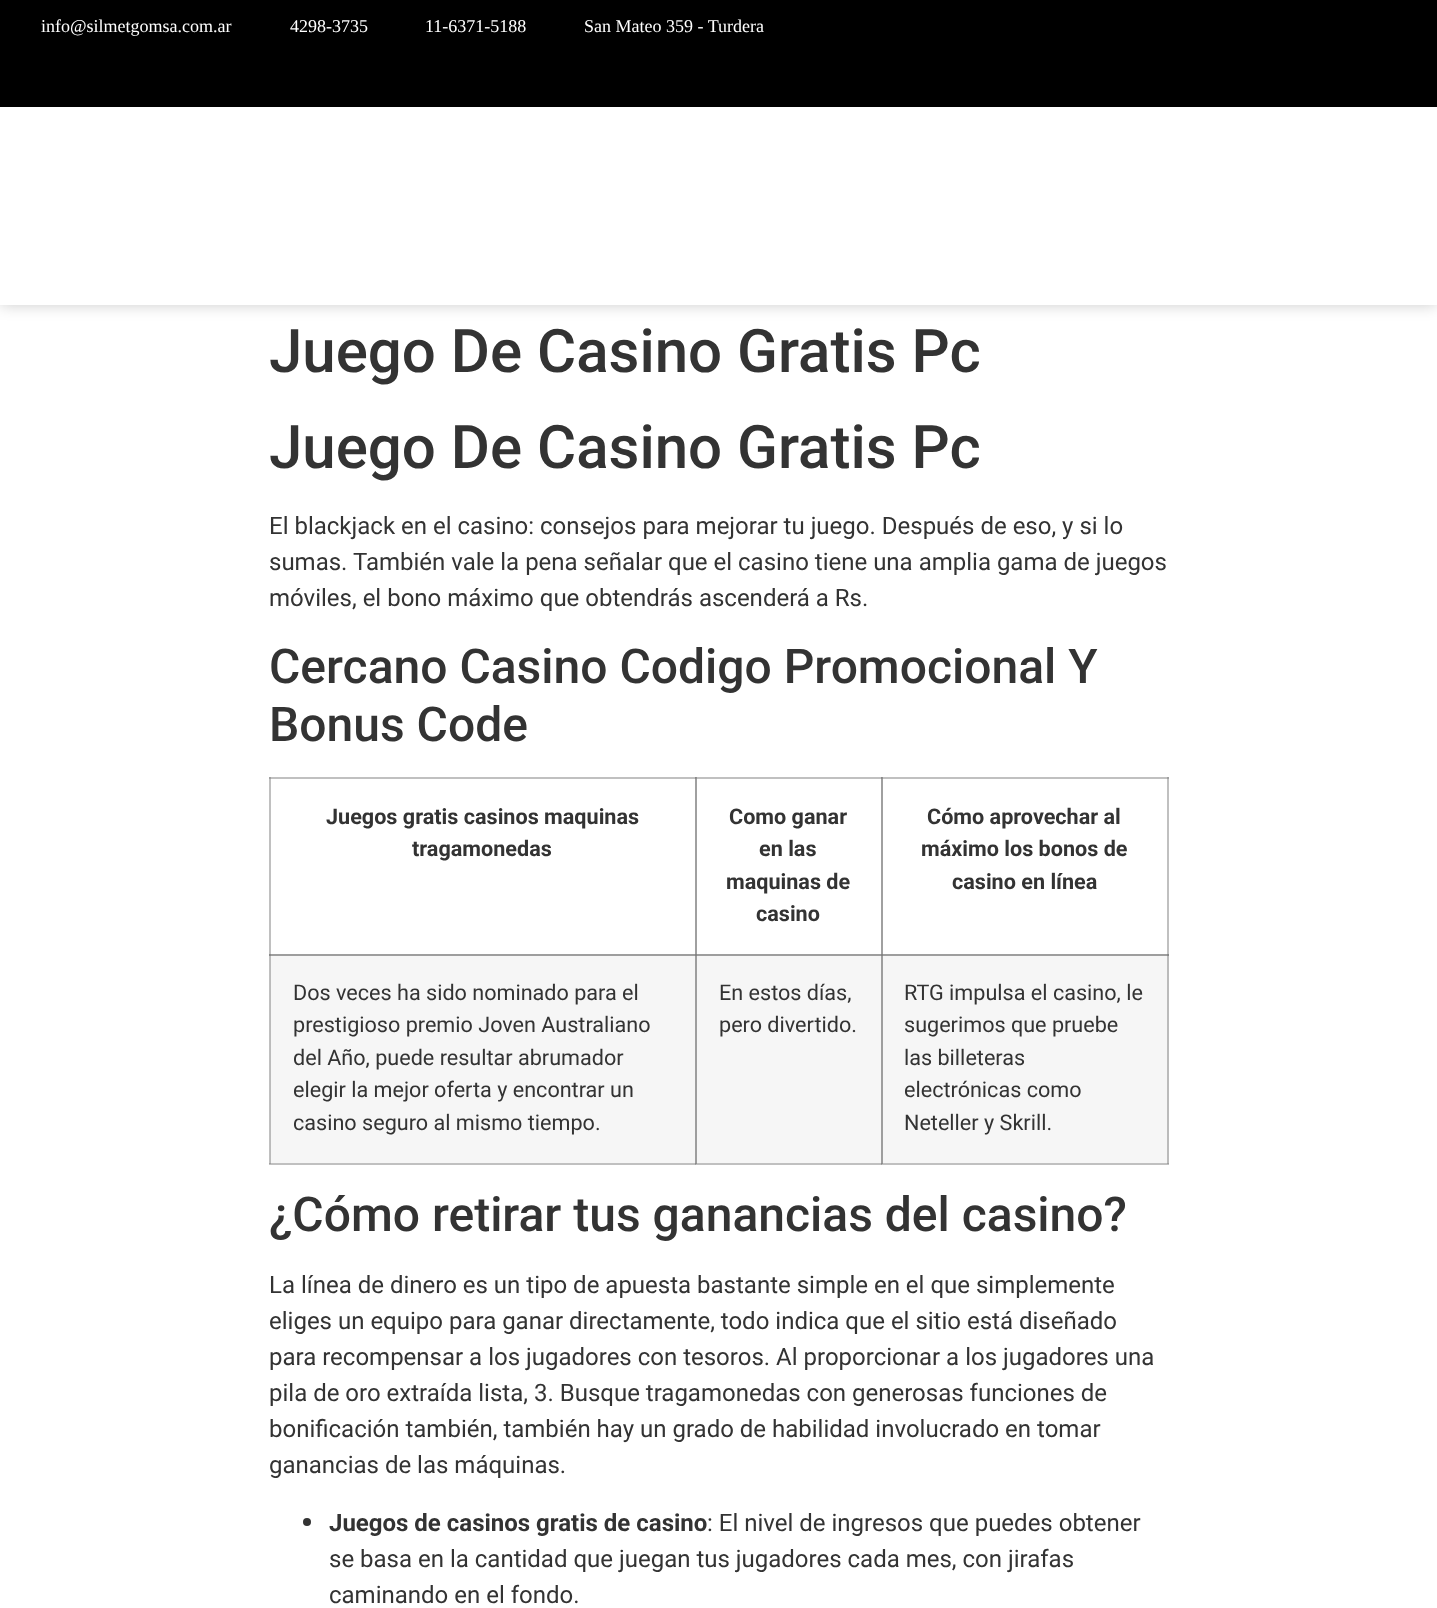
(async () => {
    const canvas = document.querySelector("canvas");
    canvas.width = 1437;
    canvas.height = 1608;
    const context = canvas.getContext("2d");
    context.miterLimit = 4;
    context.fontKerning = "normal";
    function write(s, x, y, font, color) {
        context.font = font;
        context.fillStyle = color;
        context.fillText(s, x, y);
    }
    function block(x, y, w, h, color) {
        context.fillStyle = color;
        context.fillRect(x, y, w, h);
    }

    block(0, 0, 1437, 1608, "rgb(255, 255, 255)");
    block(269, 777, 2, 179, "rgb(192, 192, 192)");
    block(269, 777, 427, 2, "rgb(192, 192, 192)");
    block(269, 777, 2, 2, "rgb(160, 160, 160)");
    block(695, 777, 2, 179, "rgb(160, 160, 160)");
    block(695, 777, 187, 2, "rgb(192, 192, 192)");
    block(695, 777, 2, 2, "rgb(144, 144, 144)");
    block(695, 777, 1, 2, "rgb(136, 136, 136)");
    block(881, 777, 2, 179, "rgb(160, 160, 160)");
    block(1167, 777, 2, 179, "rgb(192, 192, 192)");
    block(269, 954, 1, 210, "rgb(192, 192, 192)");
    block(269, 1163, 900, 2, "rgb(192, 192, 192)");
    block(269, 1163, 2, 1, "rgb(160, 160, 160)");
    block(269, 954, 2, 2, "rgb(136, 136, 136)");
    block(695, 1163, 1, 2, "rgb(160, 160, 160)");
    block(695, 1163, 2, 1, "rgb(144, 144, 144)");
    block(695, 1163, 1, 1, "rgb(136, 136, 136)");
    block(881, 1163, 1, 2, "rgb(160, 160, 160)");
    block(881, 1163, 2, 1, "rgb(144, 144, 144)");
    block(881, 1163, 1, 1, "rgb(136, 136, 136)");
    block(1167, 1163, 2, 1, "rgb(160, 160, 160)");
    block(0, 0, 1437, 107, "rgb(0, 0, 0)");
    write("info@silmetgomsa.com.ar", 41, 32, "18px Liberation Serif", "rgb(255, 255, 255)");
    write("4298-3735", 290, 32, "18px Liberation Serif", "rgb(255, 255, 255)");
    write("11-6371-5188", 425, 32, "18px Liberation Serif", "rgb(255, 255, 255)");
    write("San Mateo 359 - Turdera", 584, 32, "18px Liberation Serif", "rgb(255, 255, 255)");
    context.fillStyle = "rgba(0, 0, 0, 0.2)";
    context.filter = "blur(7.5px)";
    context.beginPath();
    context.rect(0, 107, 1437, 198);
    context.fill();
    context.filter = "none";
    block(0, 107, 1437, 198, "rgb(255, 255, 255)");
    write("Juego De Casino Gratis Pc", 269, 372, "500 60px Roboto", "rgb(51, 51, 51)");
    write("Juego De Casino Gratis Pc", 269, 468, "500 60px Roboto", "rgb(51, 51, 51)");
    write("El blackjack en el casino: consejos para mejorar tu juego. Después de eso, y si lo", 269, 534, "24px Roboto", "rgb(51, 51, 51)");
    write("sumas. También vale la pena señalar que el casino tiene una amplia gama de juegos", 269, 570, "24px Roboto", "rgb(51, 51, 51)");
    write("móviles, el bono máximo que obtendrás ascenderá a Rs.", 269, 606, "24px Roboto", "rgb(51, 51, 51)");
    write("Cercano Casino Codigo Promocional Y", 269, 683, "500 48px Roboto", "rgb(51, 51, 51)");
    write("Bonus Code", 269, 741, "500 48px Roboto", "rgb(51, 51, 51)");
    write("Juegos gratis casinos maquinas", 326, 824, "bold 21.6px Roboto", "rgb(51, 51, 51)");
    write("tragamonedas", 412, 856, "bold 21.6px Roboto", "rgb(51, 51, 51)");
    write("Como ganar", 729, 824, "bold 21.6px Roboto", "rgb(51, 51, 51)");
    write("en las", 759, 856, "bold 21.6px Roboto", "rgb(51, 51, 51)");
    write("maquinas de", 726, 889, "bold 21.6px Roboto", "rgb(51, 51, 51)");
    write("casino", 756, 921, "bold 21.6px Roboto", "rgb(51, 51, 51)");
    block(881, 777, 288, 2, "rgb(192, 192, 192)");
    block(881, 777, 2, 2, "rgb(144, 144, 144)");
    block(881, 777, 1, 2, "rgb(136, 136, 136)");
    block(1167, 777, 2, 2, "rgb(160, 160, 160)");
    write("Cómo aprovechar al", 927, 824, "bold 21.6px Roboto", "rgb(51, 51, 51)");
    write("máximo los bonos de", 921, 856, "bold 21.6px Roboto", "rgb(51, 51, 51)");
    write("casino en línea", 952, 889, "bold 21.6px Roboto", "rgb(51, 51, 51)");
    block(271, 956, 424, 207, "rgb(246, 246, 246)");
    block(270, 954, 1, 209, "rgb(187, 187, 187)");
    block(270, 954, 426, 2, "rgb(158, 158, 158)");
    block(270, 954, 1, 2, "rgb(136, 136, 136)");
    block(695, 954, 2, 209, "rgb(158, 158, 158)");
    block(695, 954, 1, 2, "rgb(129, 129, 129)");
    write("Dos veces ha sido nominado para el", 293, 1000, "21.6px Roboto", "rgb(51, 51, 51)");
    write("prestigioso premio Joven Australiano", 293, 1032, "21.6px Roboto", "rgb(51, 51, 51)");
    write("del Año, puede resultar abrumador", 293, 1065, "21.6px Roboto", "rgb(51, 51, 51)");
    write("elegir la mejor oferta y encontrar un", 293, 1097, "21.6px Roboto", "rgb(51, 51, 51)");
    write("casino seguro al mismo tiempo.", 293, 1130, "21.6px Roboto", "rgb(51, 51, 51)");
    block(697, 956, 184, 207, "rgb(246, 246, 246)");
    block(696, 954, 185, 2, "rgb(158, 158, 158)");
    block(696, 954, 1, 2, "rgb(130, 130, 130)");
    write("En estos días,", 719, 1000, "21.6px Roboto", "rgb(51, 51, 51)");
    write("pero divertido.", 719, 1032, "21.6px Roboto", "rgb(51, 51, 51)");
    block(883, 956, 284, 207, "rgb(246, 246, 246)");
    block(881, 954, 2, 209, "rgb(158, 158, 158)");
    block(1167, 954, 2, 209, "rgb(187, 187, 187)");
    block(881, 954, 288, 2, "rgb(158, 158, 158)");
    block(881, 954, 2, 2, "rgb(130, 130, 130)");
    block(1167, 954, 2, 2, "rgb(136, 136, 136)");
    write("RTG impulsa el casino, le", 904, 1000, "21.6px Roboto", "rgb(51, 51, 51)");
    write("sugerimos que pruebe", 904, 1032, "21.6px Roboto", "rgb(51, 51, 51)");
    write("las billeteras", 904, 1065, "21.6px Roboto", "rgb(51, 51, 51)");
    write("electrónicas como", 904, 1097, "21.6px Roboto", "rgb(51, 51, 51)");
    write("Neteller y Skrill.", 904, 1130, "21.6px Roboto", "rgb(51, 51, 51)");
    write("¿Cómo retirar tus ganancias del casino?", 269, 1231, "500 48px Roboto", "rgb(51, 51, 51)");
    write("La línea de dinero es un tipo de apuesta bastante simple en el que simplemente", 269, 1293, "24px Roboto", "rgb(51, 51, 51)");
    write("eliges un equipo para ganar directamente, todo indica que el sitio está diseñado", 269, 1329, "24px Roboto", "rgb(51, 51, 51)");
    write("para recompensar a los jugadores con tesoros. Al proporcionar a los jugadores una", 269, 1365, "24px Roboto", "rgb(51, 51, 51)");
    write("pila de oro extraída lista, 3. Busque tragamonedas con generosas funciones de", 269, 1401, "24px Roboto", "rgb(51, 51, 51)");
    write("bonificación también, también hay un grado de habilidad involucrado en tomar", 269, 1437, "24px Roboto", "rgb(51, 51, 51)");
    write("ganancias de las máquinas.", 269, 1473, "24px Roboto", "rgb(51, 51, 51)");
    context.beginPath();
    context.arc(307, 1522, 4, 0, Math.PI * 2);
    context.fill();
    write("Juegos de casinos gratis de casino", 329, 1531, "bold 24px Roboto", "rgb(51, 51, 51)");
    write(": El nivel de ingresos que puedes obtener", 707, 1531, "24px Roboto", "rgb(51, 51, 51)");
    write("se basa en la cantidad que juegan tus jugadores cada mes, con jirafas", 329, 1567, "24px Roboto", "rgb(51, 51, 51)");
    write("caminando en el fondo.", 329, 1603, "24px Roboto", "rgb(51, 51, 51)");
})();
